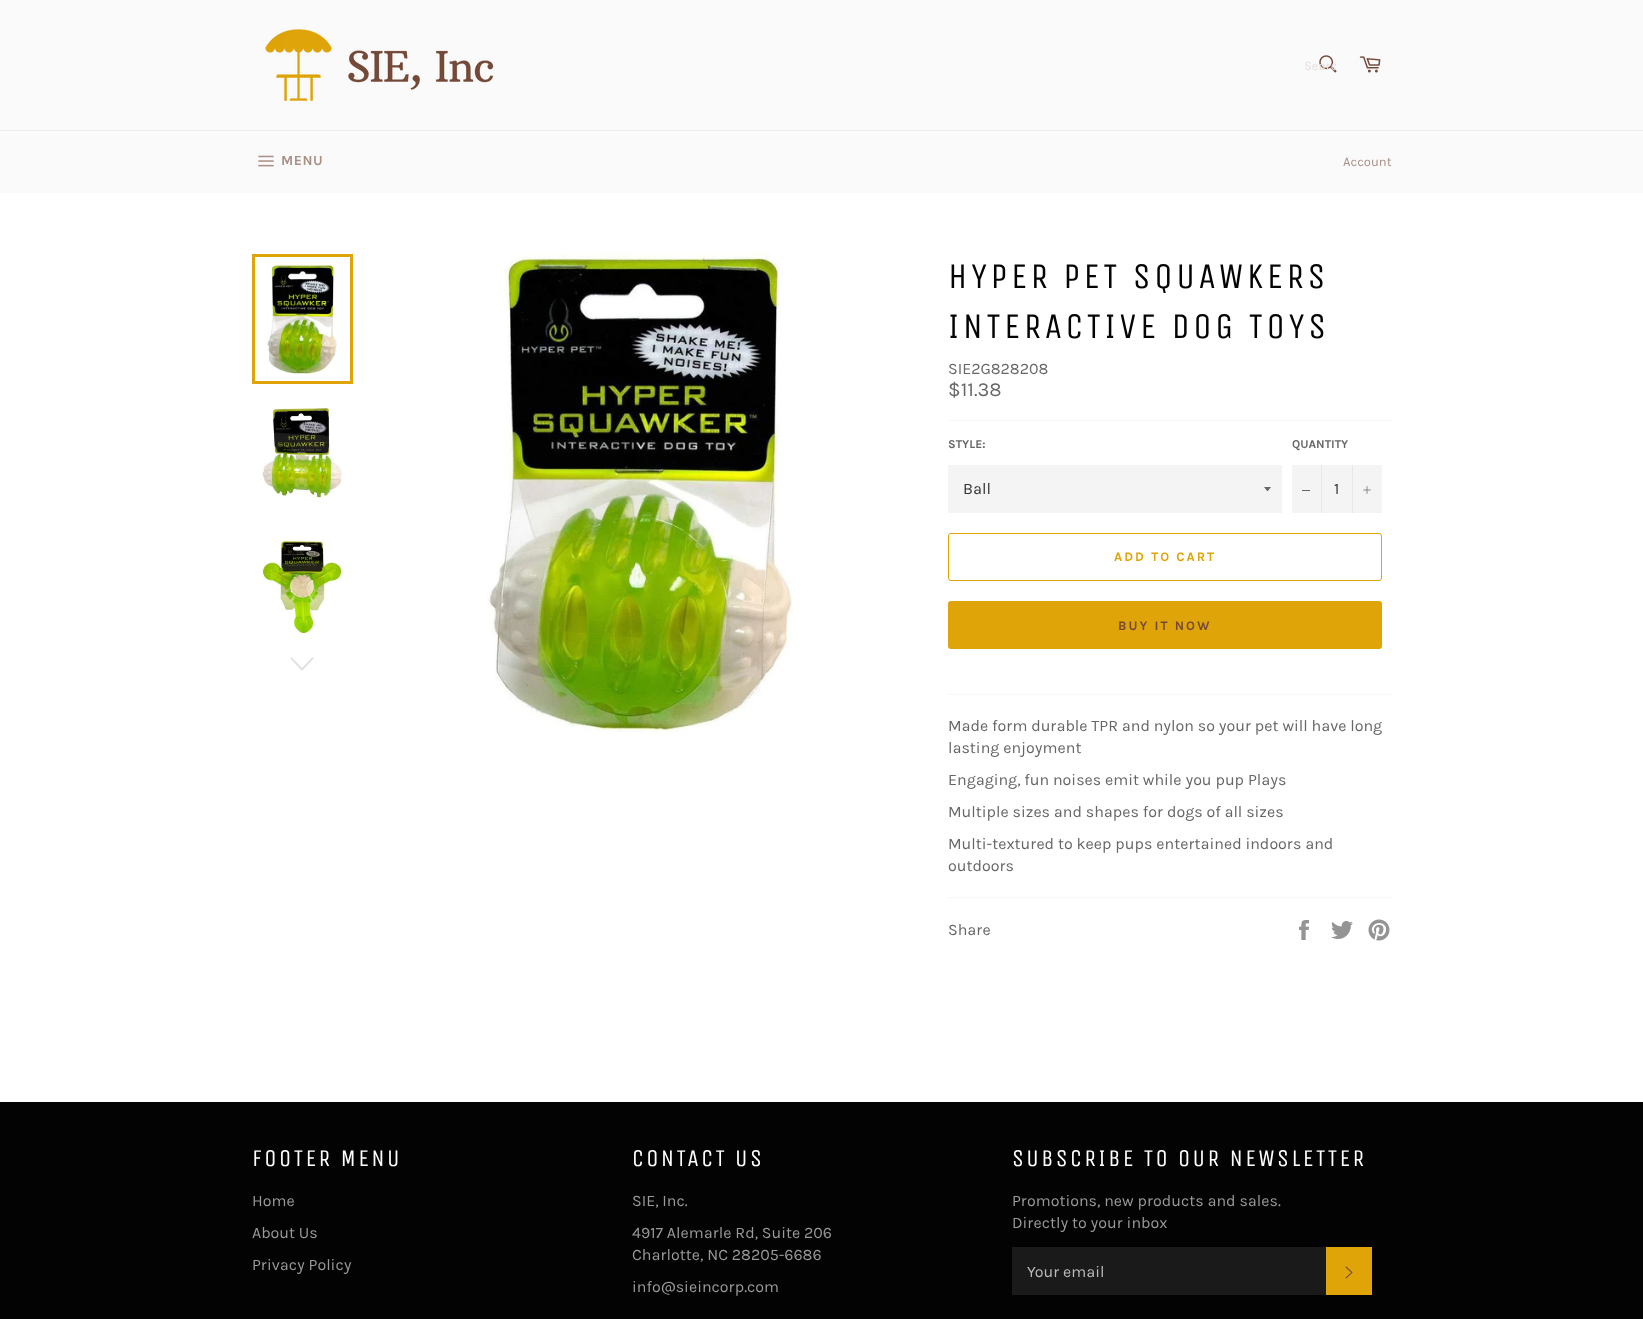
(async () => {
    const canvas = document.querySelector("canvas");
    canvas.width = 1643;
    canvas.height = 1319;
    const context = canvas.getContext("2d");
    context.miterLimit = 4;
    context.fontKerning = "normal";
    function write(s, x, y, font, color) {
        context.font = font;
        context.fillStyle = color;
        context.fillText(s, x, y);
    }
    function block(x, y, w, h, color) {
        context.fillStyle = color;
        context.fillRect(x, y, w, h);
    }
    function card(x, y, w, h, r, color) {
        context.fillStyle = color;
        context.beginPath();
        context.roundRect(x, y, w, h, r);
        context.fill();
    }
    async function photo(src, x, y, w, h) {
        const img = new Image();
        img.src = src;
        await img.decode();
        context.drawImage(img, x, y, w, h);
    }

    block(0, 0, 1643, 1319, "rgb(250, 250, 250)");
    await photo("media/1.png", 265, 29, 229, 72);
    await photo("media/2.png", 1319, 55, 18, 18);
    context.save();
    context.beginPath();
    context.rect(1304, 58, 32, 15);
    context.clip();
    write("Searc", 1304, 70, "13px Karla", "rgb(230, 223, 221)");
    context.restore();
    await photo("media/3.png", 1359, 56, 22, 17);
    block(0, 130, 1643, 1, "rgb(237, 237, 237)");
    await photo("media/4.png", 258, 155, 16, 12);
    context.letterSpacing = "0.5px";
    write("MENU", 281, 165, "bold 14px Karla", "rgb(170, 143, 134)");
    context.letterSpacing = "0px";
    write("Account", 1343, 166, "13px Karla", "rgb(170, 143, 134)");
    block(0, 193, 1643, 909, "rgb(255, 255, 255)");
    await photo("media/5.png", 267, 264, 70, 110);
    context.strokeStyle = "rgb(223, 164, 8)";
    context.lineWidth = 3;
    context.strokeRect(253.5, 255.5, 98, 127);
    await photo("media/6.png", 262, 408, 80, 90);
    await photo("media/7.png", 262, 540, 80, 94);
    context.fillStyle = "rgb(224, 224, 224)";
    context.beginPath();
    context.moveTo(312.5, 657);
    context.lineTo(313.5, 658.5);
    context.lineTo(302, 671);
    context.lineTo(290.5, 658.5);
    context.lineTo(291.5, 657);
    context.lineTo(302, 668);
    context.closePath();
    context.fill();
    await photo("media/8.png", 487, 252, 306, 480);
    context.letterSpacing = "3.6px";
    write("HYPER PET SQUAWKERS", 948, 288, "36px Unica One", "rgb(3, 3, 3)");
    write("INTERACTIVE DOG TOYS", 948, 338, "36px Unica One", "rgb(3, 3, 3)");
    context.letterSpacing = "0px";
    write("SIE2G828208", 948, 374, "16px Karla", "rgb(102, 102, 102)");
    write("$11.38", 948, 396, "20px Karla", "rgb(102, 102, 102)");
    block(948, 420, 444, 1, "rgb(247, 247, 247)");
    write("STYLE:", 948, 448, "bold 12px Karla", "rgb(102, 102, 102)");
    block(948, 465, 334, 48, "rgb(244, 244, 244)");
    context.fillStyle = "rgb(102, 102, 102)";
    context.beginPath();
    context.moveTo(1264, 487);
    context.bezierCurveTo(1268.5, 492.5, 1266.5, 492.5, 1271, 487);
    context.closePath();
    context.fill();
    write("Ball", 963, 494, "16px Karla", "rgb(51, 51, 51)");
    write("QUANTITY", 1292, 448, "bold 12px Karla", "rgb(102, 102, 102)");
    block(1292, 465, 90, 48, "rgb(244, 244, 244)");
    block(1321, 465, 1, 48, "rgb(231, 231, 231)");
    block(1302, 490, 8, 1, "rgb(102, 102, 102)");
    write("1", 1334, 494, "16px Karla", "rgb(51, 51, 51)");
    block(1352, 465, 1, 48, "rgb(231, 231, 231)");
    await photo("media/9.png", 1363, 486, 8, 8);
    context.beginPath();
    context.roundRect(948.5, 533.5, 433, 47, 2.5);
    context.lineWidth = 1;
    context.stroke();
    context.letterSpacing = "2px";
    write("ADD TO CART", 1114, 561, "bold 13px Karla", "rgb(223, 164, 8)");
    card(948, 601, 434, 48, 3, "rgb(223, 164, 8)");
    write("BUY IT NOW", 1118, 630, "bold 13px Karla", "rgb(116, 72, 56)");
    block(948, 694, 444, 1, "rgb(247, 247, 247)");
    context.letterSpacing = "0px";
    write("Made form durable TPR and nylon so your pet will have long", 948, 731, "16px Karla", "rgb(102, 102, 102)");
    write("lasting enjoyment", 948, 753, "16px Karla", "rgb(102, 102, 102)");
    write("Engaging, fun noises emit while you pup Plays", 948, 785, "16px Karla", "rgb(102, 102, 102)");
    write("Multiple sizes and shapes for dogs of all sizes", 948, 817, "16px Karla", "rgb(102, 102, 102)");
    write("Multi-textured to keep pups entertained indoors and", 948, 849, "16px Karla", "rgb(102, 102, 102)");
    write("outdoors", 948, 871, "16px Karla", "rgb(102, 102, 102)");
    block(948, 897, 444, 1, "rgb(247, 247, 247)");
    write("Share", 948, 935, "16px Karla", "rgb(102, 102, 102)");
    await photo("media/10.png", 1299, 920, 10, 20);
    await photo("media/11.png", 1331, 921, 22, 18);
    await photo("media/12.png", 1368, 919, 22, 22);
    block(0, 1102, 1643, 217, "rgb(3, 3, 3)");
    context.letterSpacing = "2.4px";
    write("FOOTER MENU", 252, 1166, "24px Unica One", "rgb(255, 255, 255)");
    context.letterSpacing = "0px";
    write("Home", 252, 1206, "16px Karla", "rgb(154, 154, 154)");
    write("About Us", 252, 1238, "16px Karla", "rgb(154, 154, 154)");
    write("Privacy Policy", 252, 1270, "16px Karla", "rgb(154, 154, 154)");
    context.letterSpacing = "2.4px";
    write("CONTACT US", 632, 1166, "24px Unica One", "rgb(255, 255, 255)");
    context.letterSpacing = "0px";
    write("SIE, Inc.", 632, 1206, "16px Karla", "rgb(154, 154, 154)");
    write("4917 Alemarle Rd, Suite 206", 632, 1238, "16px Karla", "rgb(154, 154, 154)");
    write("Charlotte, NC 28205-6686", 632, 1260, "16px Karla", "rgb(154, 154, 154)");
    write("info@sieincorp.com", 632, 1292, "16px Karla", "rgb(154, 154, 154)");
    context.letterSpacing = "2.4px";
    write("SUBSCRIBE TO OUR NEWSLETTER", 1012, 1166, "24px Unica One", "rgb(255, 255, 255)");
    context.letterSpacing = "0px";
    write("Promotions, new products and sales.", 1012, 1206, "16px Karla", "rgb(154, 154, 154)");
    write("Directly to your inbox", 1012, 1228, "16px Karla", "rgb(154, 154, 154)");
    block(1012, 1247, 314, 48, "rgb(26, 26, 26)");
    write("Your email", 1027, 1277, "16px Karla", "rgb(186, 186, 186)");
    block(1326, 1247, 46, 48, "rgb(223, 164, 8)");
    await photo("media/13.png", 1345, 1266, 8, 13);
})();
